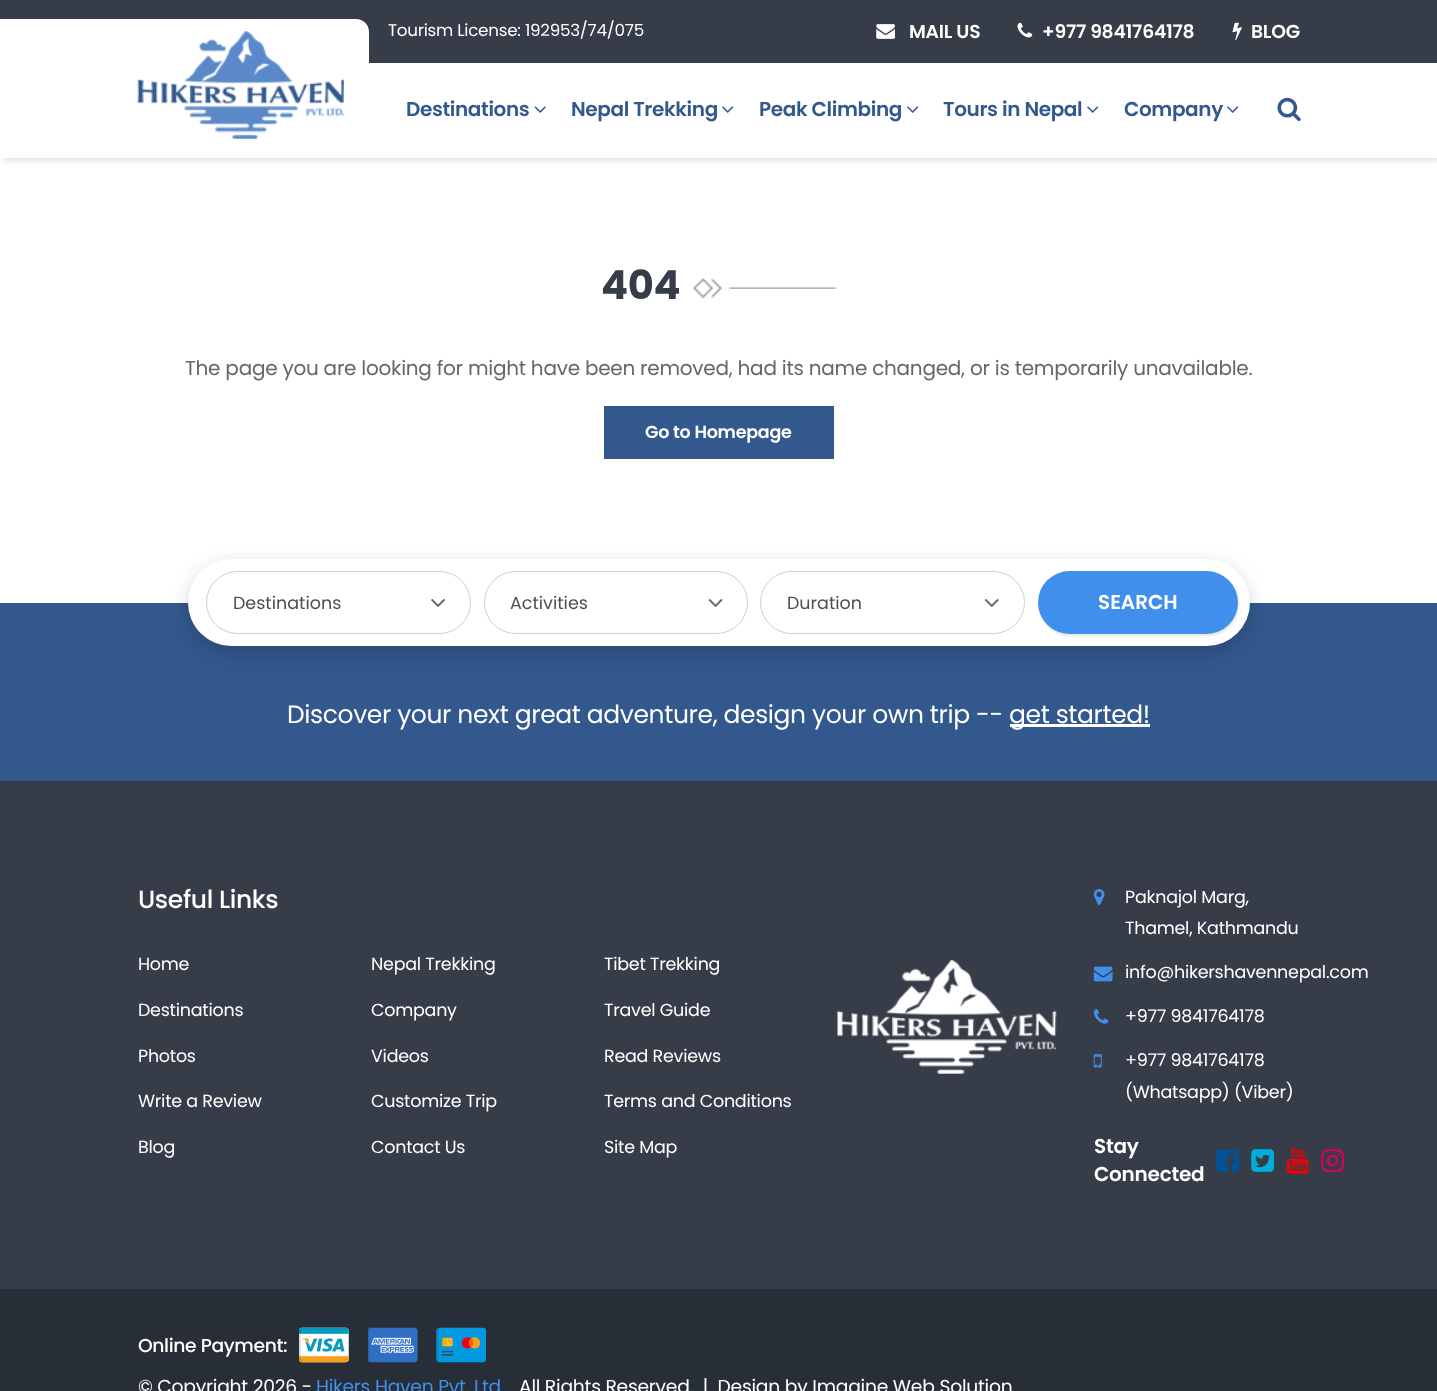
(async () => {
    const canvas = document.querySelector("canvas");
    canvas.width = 1437;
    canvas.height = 1391;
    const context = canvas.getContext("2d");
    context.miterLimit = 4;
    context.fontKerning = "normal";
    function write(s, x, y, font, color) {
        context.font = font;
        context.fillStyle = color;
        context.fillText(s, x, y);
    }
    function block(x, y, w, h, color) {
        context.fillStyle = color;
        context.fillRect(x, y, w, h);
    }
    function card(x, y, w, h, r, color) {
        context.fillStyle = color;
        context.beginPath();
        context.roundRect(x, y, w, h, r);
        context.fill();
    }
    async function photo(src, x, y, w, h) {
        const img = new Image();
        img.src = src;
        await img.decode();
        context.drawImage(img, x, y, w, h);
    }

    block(0, 0, 1437, 1391, "rgb(255, 255, 255)");
    context.save();
    context.beginPath();
    context.moveTo(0, 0);
    context.lineTo(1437, 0);
    context.lineTo(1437, 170);
    context.lineTo(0, 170);
    context.closePath();
    context.moveTo(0, 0);
    context.lineTo(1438, 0);
    context.lineTo(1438, 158);
    context.lineTo(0, 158);
    context.closePath();
    context.clip("evenodd");
    context.fillStyle = "rgba(0, 0, 0, 0.1)";
    context.filter = "blur(2.5px)";
    context.beginPath();
    context.rect(3, 4, 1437, 157);
    context.fill();
    context.filter = "none";
    context.restore();
    block(0, 0, 1437, 63, "rgb(54, 60, 72)");
    context.letterSpacing = "-0.25px";
    write("Tourism License: 192953/74/075", 388, 36, "16.75px Poppins", "rgb(255, 255, 255)");
    await photo("media/1.png", 876, 24, 19, 15);
    write("MAIL US", 909, 38, "600 18.75px Poppins", "rgb(255, 255, 255)");
    await photo("media/2.png", 1017, 22, 16, 16);
    write("+977 9841764178", 1042, 38, "600 18.75px Poppins", "rgb(255, 255, 255)");
    await photo("media/3.png", 1232, 22, 10, 19);
    write("BLOG", 1251, 38, "600 18.75px Poppins", "rgb(255, 255, 255)");
    context.beginPath();
    context.roundRect(0, 19, 369, 120, [0, 13, 0, 0]);
    context.fill();
    await photo("media/4.png", 137, 31, 207, 108);
    context.letterSpacing = "-0.38px";
    write("Destinations", 406, 116, "600 20px Poppins", "rgb(50, 88, 141)");
    await photo("media/5.png", 534, 106, 12, 7);
    write("Nepal Trekking", 571, 116, "600 20px Poppins", "rgb(50, 88, 141)");
    await photo("media/6.png", 722, 106, 12, 7);
    write("Peak Climbing", 759, 116, "600 20px Poppins", "rgb(50, 88, 141)");
    await photo("media/6.png", 907, 106, 12, 7);
    write("Tours in Nepal", 943, 116, "600 20px Poppins", "rgb(50, 88, 141)");
    await photo("media/6.png", 1087, 106, 12, 7);
    write("Company", 1124, 116, "600 20px Poppins", "rgb(50, 88, 141)");
    await photo("media/6.png", 1227, 106, 12, 7);
    await photo("media/7.png", 1277, 97, 24, 24);
    write("404", 601, 299, "bold 40px Poppins", "rgb(54, 60, 72)");
    await photo("media/8.png", 692, 277, 145, 22);
    context.letterSpacing = "-0.25px";
    write("The page you are looking for might have been removed, had its name changed, or is temporarily unavailable.", 185, 375, "20px Poppins", "rgb(102, 102, 102)");
    block(604, 406, 230, 53, "rgb(50, 88, 141)");
    write("Go to Homepage", 645, 438, "600 17.5px Poppins", "rgb(255, 255, 255)");
    block(0, 603, 1437, 178, "rgb(50, 88, 141)");
    context.fillStyle = "rgba(0, 0, 0, 0.16)";
    context.filter = "blur(9.5px)";
    context.beginPath();
    context.roundRect(188, 565, 1062, 88, 44);
    context.fill();
    context.filter = "none";
    card(188, 559, 1062, 87, 43.5, "rgb(255, 255, 255)");
    context.beginPath();
    context.roundRect(206.5, 571.5, 264, 62, 31);
    context.strokeStyle = "rgb(206, 206, 206)";
    context.stroke();
    context.letterSpacing = "0px";
    write("Destinations", 233, 609, "17.5px Poppins", "rgb(73, 80, 87)");
    await photo("media/9.png", 431, 599, 14, 8);
    context.beginPath();
    context.roundRect(484.5, 571.5, 263, 62, 31);
    context.stroke();
    write("Activities", 510, 609, "17.5px Poppins", "rgb(73, 80, 87)");
    await photo("media/10.png", 708, 599, 15, 8);
    context.beginPath();
    context.roundRect(760.5, 571.5, 264, 62, 31);
    context.stroke();
    write("Duration", 787, 609, "17.5px Poppins", "rgb(73, 80, 87)");
    await photo("media/11.png", 984, 599, 15, 8);
    context.fillStyle = "rgba(0, 0, 0, 0.1)";
    context.filter = "blur(1px)";
    context.beginPath();
    context.roundRect(1039, 574, 200, 62, 31);
    context.fill();
    context.filter = "none";
    card(1038, 571, 200, 63, 31.5, "rgb(64, 143, 236)");
    write("SEARCH", 1098, 609, "600 20px Poppins", "rgb(255, 255, 255)");
    context.letterSpacing = "-0.38px";
    write("Discover your next great adventure, design your own trip --", 287, 723, "25px Poppins", "rgb(255, 255, 255)");
    block(1010, 724, 140, 3, "rgb(255, 255, 255)");
    write("get started!", 1009, 723, "25px Poppins", "rgb(255, 255, 255)");
    block(0, 781, 1437, 508, "rgb(54, 60, 72)");
    write("Useful Links", 138, 908, "500 25px Poppins", "rgb(255, 255, 255)");
    context.letterSpacing = "-0.25px";
    write("Home", 138, 970, "17.5px Poppins", "rgb(255, 255, 255)");
    write("Nepal Trekking", 371, 970, "17.5px Poppins", "rgb(255, 255, 255)");
    write("Tibet Trekking", 604, 970, "17.5px Poppins", "rgb(255, 255, 255)");
    write("Destinations", 138, 1016, "17.5px Poppins", "rgb(255, 255, 255)");
    write("Company", 371, 1016, "17.5px Poppins", "rgb(255, 255, 255)");
    write("Travel Guide", 604, 1016, "17.5px Poppins", "rgb(255, 255, 255)");
    write("Photos", 138, 1062, "17.5px Poppins", "rgb(255, 255, 255)");
    write("Videos", 371, 1062, "17.5px Poppins", "rgb(255, 255, 255)");
    write("Read Reviews", 604, 1062, "17.5px Poppins", "rgb(255, 255, 255)");
    write("Write a Review", 138, 1107, "17.5px Poppins", "rgb(255, 255, 255)");
    write("Customize Trip", 371, 1107, "17.5px Poppins", "rgb(255, 255, 255)");
    write("Terms and Conditions", 604, 1107, "17.5px Poppins", "rgb(255, 255, 255)");
    write("Blog", 138, 1153, "17.5px Poppins", "rgb(255, 255, 255)");
    write("Contact Us", 371, 1153, "17.5px Poppins", "rgb(255, 255, 255)");
    write("Site Map", 604, 1153, "17.5px Poppins", "rgb(255, 255, 255)");
    await photo("media/12.png", 837, 960, 220, 114);
    await photo("media/13.png", 1093, 889, 12, 16);
    write("Paknajol Marg,", 1125, 903, "17.5px Poppins", "rgb(255, 255, 255)");
    write("Thamel, Kathmandu", 1125, 934, "17.5px Poppins", "rgb(255, 255, 255)");
    await photo("media/14.png", 1093, 966, 20, 16);
    write("info@hikershavennepal.com", 1125, 978, "17.5px Poppins", "rgb(255, 255, 255)");
    await photo("media/15.png", 1093, 1009, 16, 15);
    write("+977 9841764178", 1125, 1022, "17.5px Poppins", "rgb(255, 255, 255)");
    await photo("media/16.png", 1093, 1054, 9, 14);
    write("+977 9841764178", 1125, 1066, "17.5px Poppins", "rgb(255, 255, 255)");
    write("(Whatsapp) (Viber)", 1125, 1098, "17.5px Poppins", "rgb(255, 255, 255)");
    write("Stay", 1094, 1153, "600 20px Poppins", "rgb(255, 255, 255)");
    write("Connected", 1094, 1181, "600 20px Poppins", "rgb(255, 255, 255)");
    await photo("media/17.png", 1216, 1149, 23, 23);
    await photo("media/18.png", 1251, 1149, 23, 23);
    await photo("media/19.png", 1286, 1147, 23, 27);
    await photo("media/20.png", 1321, 1149, 23, 23);
    block(0, 1289, 1437, 102, "rgb(40, 46, 56)");
    context.letterSpacing = "-0.38px";
    write("Online Payment:", 138, 1352, "500 18.75px Poppins", "rgb(255, 255, 255)");
    await photo("media/21.png", 299, 1327, 50, 36);
    await photo("media/22.png", 368, 1327, 50, 36);
    await photo("media/23.png", 436, 1327, 50, 36);
    context.letterSpacing = "-0.25px";
    write("© Copyright 2026 -", 138, 1393, "18.75px Poppins", "rgb(255, 255, 255)");
    write("Hikers Haven Pvt. Ltd", 316, 1393, "18.75px Poppins", "rgb(64, 143, 236)");
    write("All Rights Reserved.  |  Design by Imagine Web Solution", 519, 1393, "18.75px Poppins", "rgb(255, 255, 255)");
})();
